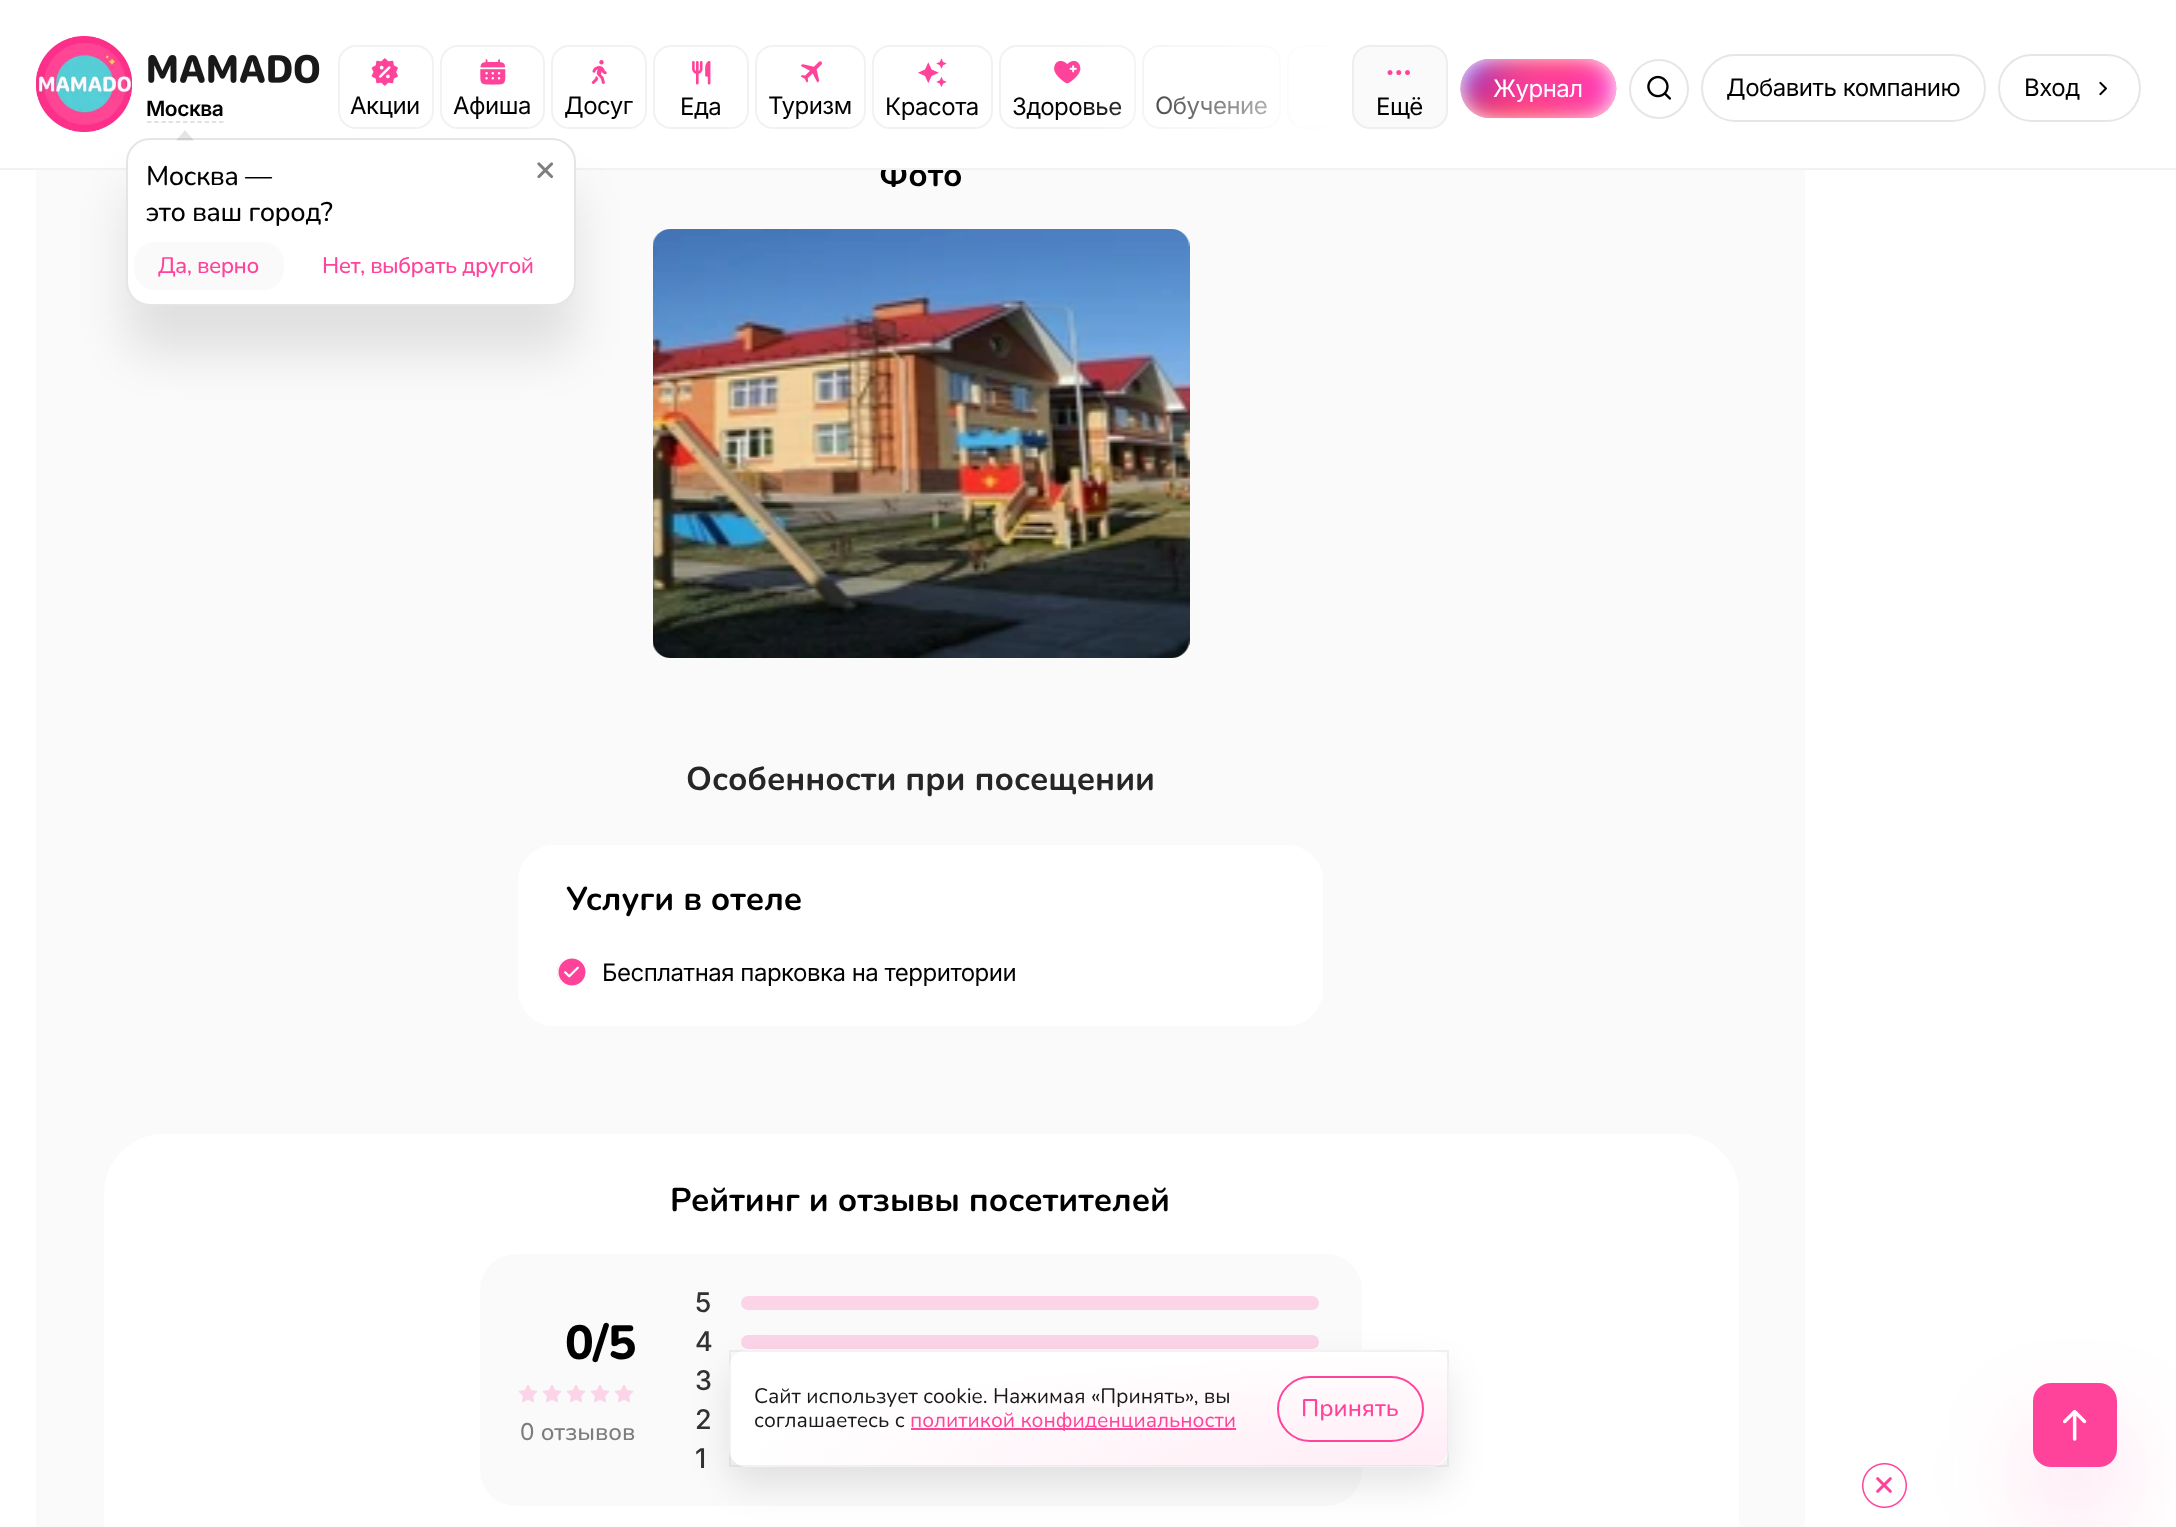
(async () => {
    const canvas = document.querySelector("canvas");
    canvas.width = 2176;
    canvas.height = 1527;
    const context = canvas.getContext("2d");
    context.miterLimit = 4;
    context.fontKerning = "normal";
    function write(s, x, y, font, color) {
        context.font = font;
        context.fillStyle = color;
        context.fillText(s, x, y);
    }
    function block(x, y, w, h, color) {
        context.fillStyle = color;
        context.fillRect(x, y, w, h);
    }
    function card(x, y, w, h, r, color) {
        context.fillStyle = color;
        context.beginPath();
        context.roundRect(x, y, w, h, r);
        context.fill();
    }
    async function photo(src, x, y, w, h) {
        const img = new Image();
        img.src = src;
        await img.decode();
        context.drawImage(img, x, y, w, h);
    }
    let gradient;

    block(0, 0, 2176, 1527, "rgb(255, 255, 255)");
    block(36, 170, 1769, 1357, "rgb(250, 250, 250)");
    write("Фото", 879, 186, "bold 33px Nunito", "rgb(0, 0, 0)");
    block(882, 161, 23, 7, "rgb(255, 255, 255)");
    block(0, 168, 2176, 2, "rgb(242, 242, 242)");
    await photo("media/1.png", 1460, 59, 157, 60);
    context.letterSpacing = "-0.5px";
    write("Журнал", 1493, 97, "24px Inter", "rgb(255, 255, 255)");
    context.beginPath();
    context.arc(1659, 89, 29, 0, Math.PI * 2);
    context.strokeStyle = "rgb(230, 230, 230)";
    context.lineWidth = 2;
    context.stroke();
    await photo("media/2.png", 1647, 75, 24, 25);
    context.beginPath();
    context.roundRect(1702, 55, 283, 66, 33);
    context.stroke();
    write("Добавить компанию", 1726, 96, "24px Inter", "rgb(0, 0, 0)");
    context.beginPath();
    context.roundRect(1999, 55, 141, 66, 33);
    context.stroke();
    write("Вход", 2024, 96, "24px Inter", "rgb(0, 0, 0)");
    await photo("media/3.png", 2099, 81, 8, 15);
    await photo("media/4.png", 36, 36, 96, 96);
    await photo("media/5.png", 148, 54, 172, 30);
    write("Москва", 146, 116, "600 21px Inter", "rgb(0, 0, 0)");
    context.beginPath();
    context.moveTo(147, 122);
    context.lineTo(223.5, 122);
    context.strokeStyle = "rgb(217, 217, 217)";
    context.lineWidth = 1.5;
    context.setLineDash([4.5, 2.7]);
    context.stroke();
    context.beginPath();
    context.roundRect(339, 46, 94, 82, 17);
    context.strokeStyle = "rgb(242, 242, 242)";
    context.lineWidth = 2;
    context.setLineDash([]);
    context.stroke();
    context.beginPath();
    context.roundRect(441, 46, 103, 82, 17);
    context.stroke();
    context.beginPath();
    context.roundRect(552, 46, 94, 82, 17);
    context.stroke();
    context.fillStyle = "rgba(0, 0, 0, 0.1)";
    context.filter = "blur(24px)";
    context.beginPath();
    context.roundRect(126, 186, 450, 168, 24);
    context.fill();
    context.filter = "none";
    card(126, 138, 450, 168, 24, "rgb(255, 255, 255)");
    context.beginPath();
    context.roundRect(127, 139, 448, 166, 23);
    context.strokeStyle = "rgba(0, 0, 0, 0.1)";
    context.stroke();
    context.fillStyle = "rgba(0, 0, 0, 0.1)";
    context.beginPath();
    context.moveTo(185, 130);
    context.lineTo(194, 140.5);
    context.lineTo(176, 140.5);
    context.closePath();
    context.fill();
    write("Москва —", 146, 185, "500 27px Nunito", "rgb(0, 0, 0)");
    write("это ваш город?", 146, 221, "500 27px Nunito", "rgb(0, 0, 0)");
    await photo("media/6.png", 537, 162, 17, 17);
    card(134, 242, 150, 48, 21, "rgb(250, 250, 250)");
    write("Да, верно", 158, 273, "500 22.5px Nunito", "rgb(255, 67, 154)");
    write("Нет, выбрать другой", 322, 273, "500 22.5px Nunito", "rgb(255, 67, 154)");
    await photo("media/7.png", 371, 58, 27, 28);
    write("Акции", 350, 114, "24px Inter", "rgb(0, 0, 0)");
    await photo("media/8.png", 480, 59, 26, 26);
    write("Афиша", 453, 114, "24px Inter", "rgb(0, 0, 0)");
    await photo("media/9.png", 591, 60, 16, 24);
    write("Досуг", 564, 114, "24px Inter", "rgb(0, 0, 0)");
    context.beginPath();
    context.roundRect(654, 46, 94, 82, 17);
    context.strokeStyle = "rgb(242, 242, 242)";
    context.stroke();
    await photo("media/10.png", 692, 61, 19, 24);
    write("Еда", 680, 115, "24px Inter", "rgb(0, 0, 0)");
    context.beginPath();
    context.roundRect(756, 46, 109, 82, 17);
    context.stroke();
    await photo("media/11.png", 800, 61, 22, 22);
    write("Туризм", 768, 114, "24px Inter", "rgb(0, 0, 0)");
    context.beginPath();
    context.roundRect(873, 46, 119, 82, 17);
    context.stroke();
    await photo("media/12.png", 918, 58, 29, 29);
    write("Красота", 885, 115, "24px Inter", "rgb(0, 0, 0)");
    context.beginPath();
    context.roundRect(1000, 46, 135, 82, 17);
    context.stroke();
    await photo("media/13.png", 1054, 60, 27, 24);
    write("Здоровье", 1012, 115, "24px Inter", "rgb(0, 0, 0)");
    context.beginPath();
    context.roundRect(1143, 46, 137, 82, 17);
    context.stroke();
    write("Обучение", 1155, 114, "24px Inter", "rgb(0, 0, 0)");
    context.beginPath();
    context.roundRect(1288, 46, 94, 82, 17);
    context.stroke();
    block(1352, 45, 31, 84, "rgb(255, 255, 255)");
    gradient = context.createLinearGradient(1358, 87, 1070, 87);
    gradient.addColorStop(0, "rgb(255, 255, 255)");
    gradient.addColorStop(1, "rgba(255, 255, 255, 0)");
    context.fillStyle = gradient;
    context.fillRect(1076, 45, 276, 84);
    context.fillStyle = "rgb(250, 250, 250)";
    context.beginPath();
    context.roundRect(1353, 46, 94, 82, 17);
    context.fill();
    context.strokeStyle = "rgb(238, 238, 238)";
    context.stroke();
    await photo("media/14.png", 1387, 70, 23, 6);
    write("Ещё", 1376, 115, "24px Inter", "rgb(0, 0, 0)");
    await photo("media/15.png", 653, 229, 537, 429);
    context.letterSpacing = "0px";
    write("Особенности при посещении", 686, 790, "bold 33px Nunito", "rgb(38, 38, 38)");
    card(518, 845, 805, 181, 36, "rgb(255, 255, 255)");
    write("Услуги в отеле", 566, 910, "bold 33px Nunito", "rgb(0, 0, 0)");
    await photo("media/16.png", 557, 958, 29, 28);
    context.letterSpacing = "-0.5px";
    write("Бесплатная парковка на территории", 602, 981, "24px Inter", "rgb(0, 0, 0)");
    card(104, 1134, 1635, 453, 60, "rgb(255, 255, 255)");
    context.letterSpacing = "0px";
    write("Рейтинг и отзывы посетителей", 670, 1211, "bold 33px Nunito", "rgb(0, 0, 0)");
    card(480, 1254, 882, 252, 36, "rgb(250, 250, 250)");
    context.letterSpacing = "-1px";
    write("0/5", 565, 1359, "800 48px Nunito", "rgb(0, 0, 0)");
    await photo("media/17.png", 518, 1384, 20, 19);
    await photo("media/17.png", 542, 1384, 20, 19);
    await photo("media/17.png", 566, 1384, 20, 19);
    await photo("media/17.png", 590, 1384, 20, 19);
    await photo("media/17.png", 614, 1384, 20, 19);
    context.letterSpacing = "0px";
    write("0 отзывов", 520, 1440, "500 24px Nunito", "rgb(125, 125, 125)");
    context.letterSpacing = "-0.5px";
    write("5", 695, 1312, "500 27px Inter", "rgb(50, 50, 50)");
    card(741, 1296, 578, 14, 7, "rgb(251, 213, 231)");
    write("4", 695, 1351, "500 27px Inter", "rgb(50, 50, 50)");
    card(741, 1335, 578, 14, 7, "rgb(251, 213, 231)");
    write("3", 695, 1390, "500 27px Inter", "rgb(50, 50, 50)");
    write("2", 695, 1429, "500 27px Inter", "rgb(50, 50, 50)");
    write("1", 695, 1468, "500 27px Inter", "rgb(50, 50, 50)");
    context.fillStyle = "rgba(0, 0, 0, 0.1)";
    context.filter = "blur(18px)";
    context.beginPath();
    context.roundRect(729, 1368, 720, 117, 18);
    context.fill();
    context.filter = "none";
    card(729, 1350, 720, 117, 18, "rgb(255, 255, 255)");
    context.strokeStyle = "rgba(0, 0, 0, 0.05)";
    context.strokeRect(730, 1351, 718, 115);
    gradient = context.createRadialGradient(1448, 9220.37, 0, 1448, 9220.37, 717);
    gradient.addColorStop(0, "rgba(255, 67, 154, 0.1)");
    gradient.addColorStop(1, "rgba(255, 67, 154, 0)");
    context.fillStyle = gradient;
    context.beginPath();
    context.roundRect(731, 1352, 717, 114, 17);
    context.save();
    context.clip();
    context.scale(1, 114 / 717);
    context.fillRect(0, 0, 2176, 9605);
    context.restore();
    context.letterSpacing = "0px";
    write("Сайт использует cookie. Нажимая «Принять», вы", 754, 1403, "21px Nunito", "rgb(26, 25, 25)");
    write("соглашаетесь с", 754, 1427, "21px Nunito", "rgb(26, 25, 25)");
    block(911, 1428, 325, 2, "rgb(255, 67, 154)");
    write("политикой конфиденциальности", 910, 1427, "21px Nunito", "rgb(255, 67, 154)");
    context.beginPath();
    context.roundRect(1278, 1377, 145, 64, 32);
    context.strokeStyle = "rgb(255, 67, 154)";
    context.stroke();
    write("Принять", 1301, 1416, "500 24px Nunito", "rgb(255, 67, 154)");
    context.fillStyle = "rgba(255, 67, 154, 0.2)";
    context.filter = "blur(48px)";
    context.beginPath();
    context.roundRect(2033, 1431, 84, 84, 18);
    context.fill();
    context.filter = "none";
    card(2033, 1383, 84, 84, 18, "rgb(255, 67, 154)");
    await photo("media/18.png", 2063, 1409, 24, 32);
    await photo("media/19.png", 1862, 1463, 45, 45);
})();
